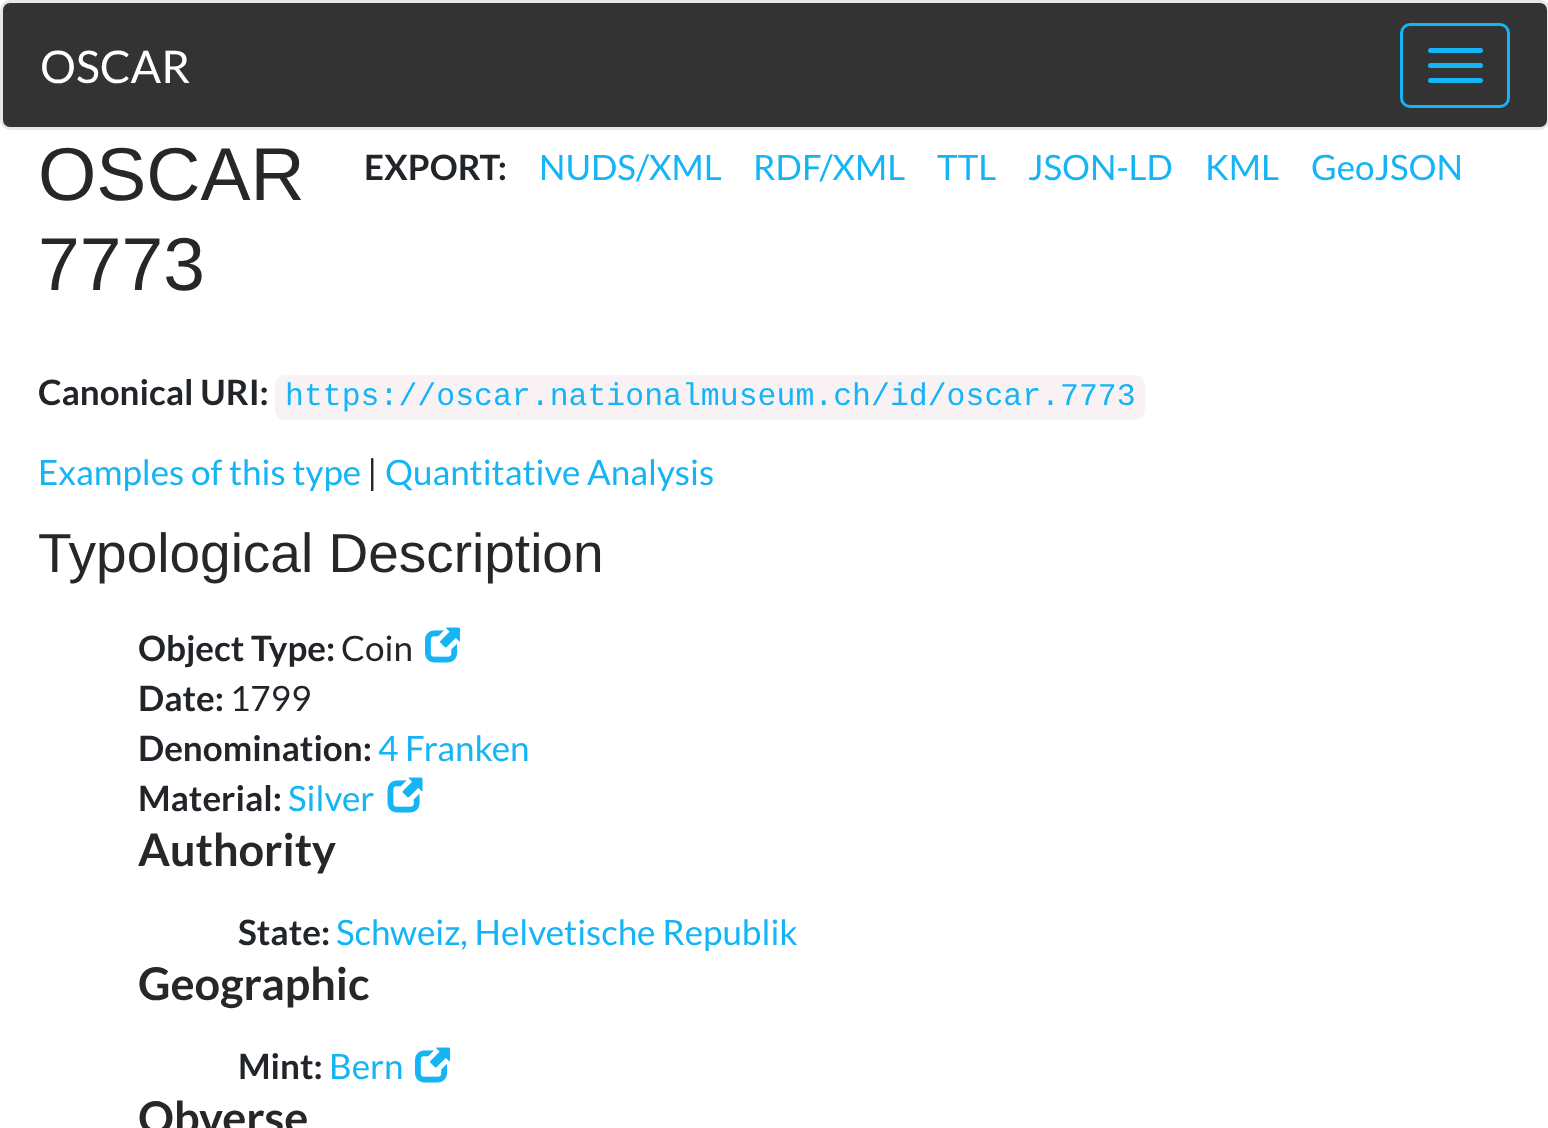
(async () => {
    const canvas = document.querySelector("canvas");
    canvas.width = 1548;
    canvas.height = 1128;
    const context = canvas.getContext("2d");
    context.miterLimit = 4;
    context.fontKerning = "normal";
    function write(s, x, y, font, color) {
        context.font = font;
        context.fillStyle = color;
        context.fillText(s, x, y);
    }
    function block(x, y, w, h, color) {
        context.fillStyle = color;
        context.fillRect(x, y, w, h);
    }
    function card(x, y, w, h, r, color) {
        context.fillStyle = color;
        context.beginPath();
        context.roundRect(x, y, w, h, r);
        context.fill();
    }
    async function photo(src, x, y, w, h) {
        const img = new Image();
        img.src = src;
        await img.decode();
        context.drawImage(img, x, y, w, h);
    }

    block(0, 0, 1548, 1128, "rgb(255, 255, 255)");
    context.fillStyle = "rgb(51, 51, 51)";
    context.beginPath();
    context.roundRect(1.5, 1.5, 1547, 127, 8.5);
    context.fill();
    context.strokeStyle = "rgb(231, 231, 231)";
    context.lineWidth = 3;
    context.stroke();
    write("OSCAR", 40, 83, "45px Lato", "rgb(255, 255, 255)");
    context.beginPath();
    context.roundRect(1401.5, 24.5, 107, 82, 8.5);
    context.strokeStyle = "rgb(20, 180, 245)";
    context.stroke();
    card(1428, 48, 55, 5, 2.5, "rgb(20, 180, 245)");
    card(1428, 63, 55, 5, 2.5, "rgb(20, 180, 245)");
    card(1428, 78, 55, 5, 2.5, "rgb(20, 180, 245)");
    write("OSCAR", 38, 200, "75px Liberation Sans", "rgb(40, 39, 37)");
    write("7773", 38, 290, "75px Liberation Sans", "rgb(40, 39, 37)");
    write("Canonical URI:", 38, 405, "bold 35px Lato", "rgb(33, 37, 41)");
    card(275, 375, 870, 45, 10, "rgb(249, 242, 244)");
    write("https://oscar.nationalmuseum.ch/id/oscar.7773", 285, 405, "31.5px Liberation Mono", "rgb(20, 180, 245)");
    write("Examples of this type", 38, 485, "35px Lato", "rgb(20, 180, 245)");
    write("|", 367, 485, "35px Lato", "rgb(33, 37, 41)");
    write("Quantitative Analysis", 385, 485, "35px Lato", "rgb(20, 180, 245)");
    write("EXPORT:", 364, 180, "bold 35px Lato", "rgb(33, 37, 41)");
    write("NUDS/XML", 539, 180, "35px Lato", "rgb(20, 180, 245)");
    write("RDF/XML", 753, 180, "35px Lato", "rgb(20, 180, 245)");
    write("TTL", 937, 180, "35px Lato", "rgb(20, 180, 245)");
    write("JSON-LD", 1028, 180, "35px Lato", "rgb(20, 180, 245)");
    write("KML", 1205, 180, "35px Lato", "rgb(20, 180, 245)");
    write("GeoJSON", 1311, 180, "35px Lato", "rgb(20, 180, 245)");
    write("Typological Description", 38, 572, "55px Liberation Sans", "rgb(40, 39, 37)");
    write("Object Type:", 138, 661, "bold 35px Lato", "rgb(33, 37, 41)");
    write("Coin", 341, 661, "35px Lato", "rgb(33, 37, 41)");
    await photo("media/1.png", 425, 627, 35, 36);
    write("Date:", 138, 711, "bold 35px Lato", "rgb(33, 37, 41)");
    write("1799", 230, 711, "35px Lato", "rgb(33, 37, 41)");
    write("Denomination:", 138, 761, "bold 35px Lato", "rgb(33, 37, 41)");
    write("4 Franken", 378, 761, "35px Lato", "rgb(20, 180, 245)");
    write("Material:", 138, 811, "bold 35px Lato", "rgb(33, 37, 41)");
    write("Silver", 288, 811, "35px Lato", "rgb(20, 180, 245)");
    await photo("media/2.png", 387, 777, 36, 36);
    write("Authority", 138, 866, "bold 45px Lato", "rgb(40, 39, 37)");
    write("State:", 238, 945, "bold 35px Lato", "rgb(33, 37, 41)");
    write("Schweiz, Helvetische Republik", 336, 945, "35px Lato", "rgb(20, 180, 245)");
    write("Geographic", 138, 1000, "bold 45px Lato", "rgb(40, 39, 37)");
    write("Mint:", 238, 1079, "bold 35px Lato", "rgb(33, 37, 41)");
    write("Bern", 329, 1079, "35px Lato", "rgb(20, 180, 245)");
    await photo("media/1.png", 415, 1047, 35, 36);
    write("Obverse", 138, 1134, "bold 45px Lato", "rgb(40, 39, 37)");
})();
